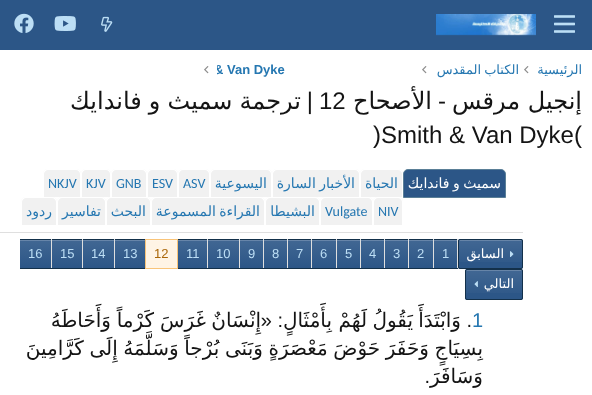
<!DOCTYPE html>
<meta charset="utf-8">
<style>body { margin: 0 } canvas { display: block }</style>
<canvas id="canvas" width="592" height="395"></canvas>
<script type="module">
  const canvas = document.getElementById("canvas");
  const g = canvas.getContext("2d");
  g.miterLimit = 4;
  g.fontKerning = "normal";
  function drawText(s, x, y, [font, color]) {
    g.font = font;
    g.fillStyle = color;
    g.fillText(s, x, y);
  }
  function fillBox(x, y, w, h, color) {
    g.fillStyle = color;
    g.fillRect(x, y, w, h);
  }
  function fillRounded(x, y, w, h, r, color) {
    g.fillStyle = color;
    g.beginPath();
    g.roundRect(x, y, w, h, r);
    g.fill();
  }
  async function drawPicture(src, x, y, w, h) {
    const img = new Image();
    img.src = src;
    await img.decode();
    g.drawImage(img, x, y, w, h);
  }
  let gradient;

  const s1 = ["13px DejaVu Sans", "#2577B1"];
  const s2 = ["bold 13px Liberation Sans", "#2577B1"];
  const s3 = ["24px DejaVu Sans", "#141414"];
  const s4 = ["24px Liberation Sans", "#141414"];
  const s5 = ["14px DejaVu Sans", "#FFFFFF"];
  const s6 = ["14px DejaVu Sans", "#2577B1"];
  const s7 = ["14px Carlito", "#2577B1"];
  const s8 = ["13px DejaVu Sans", "#FFFFFF"];
  const s9 = ["13px Liberation Sans", "#BCDEF5"];
  const s10 = ["13px Liberation Sans", "#AA6709"];
  const s11 = ["20px Liberation Sans", "#2577B1"];
  const s12 = ["20px Liberation Sans", "#141414"];
  const s13 = ["20px DejaVu Sans", "#141414"];

  fillBox(0, 0, 592, 395, "#FFFFFF");
  fillBox(0, 0, 592, 50, "#2C5687");
  await drawPicture("pic1.png", 554, 15, 21, 18);
  await drawPicture("pic2.png", 436, 14, 100, 22);
  await drawPicture("pic3.png", 101, 16, 12, 16);
  await drawPicture("pic4.png", 54, 16, 22, 15);
  await drawPicture("pic5.png", 14, 13, 20, 20);
  g.direction = "rtl";
  drawText("الرئيسية", 582, 74, s1);
  await drawPicture("pic6.png", 524, 66, 5, 8);
  g.wordSpacing = "-1px";
  drawText("الكتاب المقدس", 519, 74, s1);
  await drawPicture("pic6.png", 422, 66, 5, 8);
  g.save();
  g.beginPath();
  g.rect(217, 60, 200, 19);
  g.clip();
  g.wordSpacing = "0px";
  g.direction = "ltr";
  drawText("& Van Dyke", 214, 74, s2);
  g.restore();
  await drawPicture("pic6.png", 204, 66, 5, 8);
  g.wordSpacing = "0px";
  drawText("إنجيل مرقس", 582, 109, s3);
  drawText("-", 446, 109, s4);
  drawText("الأصحاح", 432, 109, s3);
  g.direction = "ltr";
  drawText("12", 319, 109, s4);
  g.direction = "rtl";
  drawText("|", 313, 109, s4);
  g.wordSpacing = "-0.5px";
  drawText("ترجمة سميث و فاندايك", 301, 109, s3);
  g.wordSpacing = "0px";
  g.direction = "ltr";
  drawText(")Smith & Van Dyke(", 373, 143, s4);
  g.fillStyle = "#2C5687";
  g.beginPath();
  g.roundRect(403.5, 169.5, 102, 28, [4.5, 4.5, 0, 0]);
  g.fill();
  g.strokeStyle = "#5A7F97";
  g.stroke();
  g.wordSpacing = "-1px";
  g.direction = "rtl";
  drawText("سميث و فاندايك", 501, 188, s5);
  g.fillStyle = "#F1F1F1";
  g.beginPath();
  g.roundRect(360, 169, 43, 28, [5, 5, 0, 0]);
  g.fill();
  g.fillStyle = "#FFFFFF";
  g.beginPath();
  g.moveTo(365, 169);
  g.lineTo(398, 169);
  g.bezierCurveTo(401, 169, 403, 171, 403, 174);
  g.lineTo(403, 197);
  g.lineTo(360, 197);
  g.lineTo(360, 174);
  g.bezierCurveTo(360, 171, 362, 169, 365, 169);
  g.closePath();
  g.moveTo(365, 170);
  g.lineTo(398, 170);
  g.bezierCurveTo(400, 170, 402, 172, 402, 174);
  g.lineTo(402, 197);
  g.lineTo(361, 197);
  g.lineTo(361, 174);
  g.bezierCurveTo(361, 172, 363, 170, 365, 170);
  g.closePath();
  g.fill("evenodd");
  g.wordSpacing = "0px";
  drawText("الحياة", 398, 188, s6);
  g.fillStyle = "#F1F1F1";
  g.beginPath();
  g.roundRect(272, 169, 88, 28, [5, 5, 0, 0]);
  g.fill();
  g.fillStyle = "#FFFFFF";
  g.beginPath();
  g.moveTo(277, 169);
  g.lineTo(355, 169);
  g.bezierCurveTo(358, 169, 360, 171, 360, 174);
  g.lineTo(360, 197);
  g.lineTo(272, 197);
  g.lineTo(272, 174);
  g.bezierCurveTo(272, 171, 274, 169, 277, 169);
  g.closePath();
  g.moveTo(277, 170);
  g.lineTo(355, 170);
  g.bezierCurveTo(357, 170, 359, 172, 359, 174);
  g.lineTo(359, 197);
  g.lineTo(273, 197);
  g.lineTo(273, 174);
  g.bezierCurveTo(273, 172, 275, 170, 277, 170);
  g.closePath();
  g.fill("evenodd");
  g.wordSpacing = "-1px";
  drawText("الأخبار السارة", 355, 188, s6);
  g.fillStyle = "#F1F1F1";
  g.beginPath();
  g.roundRect(210, 169, 62, 28, [5, 5, 0, 0]);
  g.fill();
  g.fillStyle = "#FFFFFF";
  g.beginPath();
  g.moveTo(215, 169);
  g.lineTo(267, 169);
  g.bezierCurveTo(270, 169, 272, 171, 272, 174);
  g.lineTo(272, 197);
  g.lineTo(210, 197);
  g.lineTo(210, 174);
  g.bezierCurveTo(210, 171, 212, 169, 215, 169);
  g.closePath();
  g.moveTo(215, 170);
  g.lineTo(267, 170);
  g.bezierCurveTo(269, 170, 271, 172, 271, 174);
  g.lineTo(271, 197);
  g.lineTo(211, 197);
  g.lineTo(211, 174);
  g.bezierCurveTo(211, 172, 213, 170, 215, 170);
  g.closePath();
  g.fill("evenodd");
  g.wordSpacing = "0px";
  drawText("اليسوعية", 267, 188, s6);
  g.fillStyle = "#F1F1F1";
  g.beginPath();
  g.roundRect(178, 169, 32, 28, [5, 5, 0, 0]);
  g.fill();
  g.fillStyle = "#FFFFFF";
  g.beginPath();
  g.moveTo(183, 169);
  g.lineTo(205, 169);
  g.bezierCurveTo(208, 169, 210, 171, 210, 174);
  g.lineTo(210, 197);
  g.lineTo(178, 197);
  g.lineTo(178, 174);
  g.bezierCurveTo(178, 171, 180, 169, 183, 169);
  g.closePath();
  g.moveTo(183, 170);
  g.lineTo(205, 170);
  g.bezierCurveTo(207, 170, 209, 172, 209, 174);
  g.lineTo(209, 197);
  g.lineTo(179, 197);
  g.lineTo(179, 174);
  g.bezierCurveTo(179, 172, 181, 170, 183, 170);
  g.closePath();
  g.fill("evenodd");
  g.direction = "ltr";
  drawText("ASV", 183, 188, s7);
  g.fillStyle = "#F1F1F1";
  g.beginPath();
  g.roundRect(147, 169, 31, 28, [5, 5, 0, 0]);
  g.fill();
  g.fillStyle = "#FFFFFF";
  g.beginPath();
  g.moveTo(152, 169);
  g.lineTo(173, 169);
  g.bezierCurveTo(176, 169, 178, 171, 178, 174);
  g.lineTo(178, 197);
  g.lineTo(147, 197);
  g.lineTo(147, 174);
  g.bezierCurveTo(147, 171, 149, 169, 152, 169);
  g.closePath();
  g.moveTo(152, 170);
  g.lineTo(173, 170);
  g.bezierCurveTo(175, 170, 177, 172, 177, 174);
  g.lineTo(177, 197);
  g.lineTo(148, 197);
  g.lineTo(148, 174);
  g.bezierCurveTo(148, 172, 150, 170, 152, 170);
  g.closePath();
  g.fill("evenodd");
  drawText("ESV", 152, 188, s7);
  g.fillStyle = "#F1F1F1";
  g.beginPath();
  g.roundRect(111, 169, 36, 28, [5, 5, 0, 0]);
  g.fill();
  g.fillStyle = "#FFFFFF";
  g.beginPath();
  g.moveTo(116, 169);
  g.lineTo(142, 169);
  g.bezierCurveTo(145, 169, 147, 171, 147, 174);
  g.lineTo(147, 197);
  g.lineTo(111, 197);
  g.lineTo(111, 174);
  g.bezierCurveTo(111, 171, 113, 169, 116, 169);
  g.closePath();
  g.moveTo(116, 170);
  g.lineTo(142, 170);
  g.bezierCurveTo(144, 170, 146, 172, 146, 174);
  g.lineTo(146, 197);
  g.lineTo(112, 197);
  g.lineTo(112, 174);
  g.bezierCurveTo(112, 172, 114, 170, 116, 170);
  g.closePath();
  g.fill("evenodd");
  drawText("GNB", 116, 188, s7);
  g.fillStyle = "#F1F1F1";
  g.beginPath();
  g.roundRect(81, 169, 30, 28, [5, 5, 0, 0]);
  g.fill();
  g.fillStyle = "#FFFFFF";
  g.beginPath();
  g.moveTo(86, 169);
  g.lineTo(106, 169);
  g.bezierCurveTo(109, 169, 111, 171, 111, 174);
  g.lineTo(111, 197);
  g.lineTo(81, 197);
  g.lineTo(81, 174);
  g.bezierCurveTo(81, 171, 83, 169, 86, 169);
  g.closePath();
  g.moveTo(86, 170);
  g.lineTo(106, 170);
  g.bezierCurveTo(108, 170, 110, 172, 110, 174);
  g.lineTo(110, 197);
  g.lineTo(82, 197);
  g.lineTo(82, 174);
  g.bezierCurveTo(82, 172, 84, 170, 86, 170);
  g.closePath();
  g.fill("evenodd");
  drawText("KJV", 86, 188, s7);
  g.fillStyle = "#F1F1F1";
  g.beginPath();
  g.roundRect(43, 169, 38, 28, [5, 5, 0, 0]);
  g.fill();
  g.fillStyle = "#FFFFFF";
  g.beginPath();
  g.moveTo(48, 169);
  g.lineTo(76, 169);
  g.bezierCurveTo(79, 169, 81, 171, 81, 174);
  g.lineTo(81, 197);
  g.lineTo(43, 197);
  g.lineTo(43, 174);
  g.bezierCurveTo(43, 171, 45, 169, 48, 169);
  g.closePath();
  g.moveTo(48, 170);
  g.lineTo(76, 170);
  g.bezierCurveTo(78, 170, 80, 172, 80, 174);
  g.lineTo(80, 197);
  g.lineTo(44, 197);
  g.lineTo(44, 174);
  g.bezierCurveTo(44, 172, 46, 170, 48, 170);
  g.closePath();
  g.fill("evenodd");
  drawText("NKJV", 48, 188, s7);
  g.fillStyle = "#F1F1F1";
  g.beginPath();
  g.roundRect(373, 197, 30, 28, [5, 5, 0, 0]);
  g.fill();
  g.fillStyle = "#FFFFFF";
  g.beginPath();
  g.moveTo(378, 197);
  g.lineTo(398, 197);
  g.bezierCurveTo(401, 197, 403, 199, 403, 202);
  g.lineTo(403, 225);
  g.lineTo(373, 225);
  g.lineTo(373, 202);
  g.bezierCurveTo(373, 199, 375, 197, 378, 197);
  g.closePath();
  g.moveTo(378, 198);
  g.lineTo(398, 198);
  g.bezierCurveTo(400, 198, 402, 200, 402, 202);
  g.lineTo(402, 225);
  g.lineTo(374, 225);
  g.lineTo(374, 202);
  g.bezierCurveTo(374, 200, 376, 198, 378, 198);
  g.closePath();
  g.fill("evenodd");
  drawText("NIV", 378, 216, s7);
  g.fillStyle = "#F1F1F1";
  g.beginPath();
  g.roundRect(320, 197, 53, 28, [5, 5, 0, 0]);
  g.fill();
  g.fillStyle = "#FFFFFF";
  g.beginPath();
  g.moveTo(325, 197);
  g.lineTo(368, 197);
  g.bezierCurveTo(371, 197, 373, 199, 373, 202);
  g.lineTo(373, 225);
  g.lineTo(320, 225);
  g.lineTo(320, 202);
  g.bezierCurveTo(320, 199, 322, 197, 325, 197);
  g.closePath();
  g.moveTo(325, 198);
  g.lineTo(368, 198);
  g.bezierCurveTo(370, 198, 372, 200, 372, 202);
  g.lineTo(372, 225);
  g.lineTo(321, 225);
  g.lineTo(321, 202);
  g.bezierCurveTo(321, 200, 323, 198, 325, 198);
  g.closePath();
  g.fill("evenodd");
  drawText("Vulgate", 325, 216, s7);
  g.fillStyle = "#F1F1F1";
  g.beginPath();
  g.roundRect(265, 197, 55, 28, [5, 5, 0, 0]);
  g.fill();
  g.fillStyle = "#FFFFFF";
  g.beginPath();
  g.moveTo(270, 197);
  g.lineTo(315, 197);
  g.bezierCurveTo(318, 197, 320, 199, 320, 202);
  g.lineTo(320, 225);
  g.lineTo(265, 225);
  g.lineTo(265, 202);
  g.bezierCurveTo(265, 199, 267, 197, 270, 197);
  g.closePath();
  g.moveTo(270, 198);
  g.lineTo(315, 198);
  g.bezierCurveTo(317, 198, 319, 200, 319, 202);
  g.lineTo(319, 225);
  g.lineTo(266, 225);
  g.lineTo(266, 202);
  g.bezierCurveTo(266, 200, 268, 198, 270, 198);
  g.closePath();
  g.fill("evenodd");
  g.direction = "rtl";
  drawText("البشيطا", 315, 216, s6);
  g.fillStyle = "#F1F1F1";
  g.beginPath();
  g.roundRect(151, 197, 114, 28, [5, 5, 0, 0]);
  g.fill();
  g.fillStyle = "#FFFFFF";
  g.beginPath();
  g.moveTo(156, 197);
  g.lineTo(260, 197);
  g.bezierCurveTo(263, 197, 265, 199, 265, 202);
  g.lineTo(265, 225);
  g.lineTo(151, 225);
  g.lineTo(151, 202);
  g.bezierCurveTo(151, 199, 153, 197, 156, 197);
  g.closePath();
  g.moveTo(156, 198);
  g.lineTo(260, 198);
  g.bezierCurveTo(262, 198, 264, 200, 264, 202);
  g.lineTo(264, 225);
  g.lineTo(152, 225);
  g.lineTo(152, 202);
  g.bezierCurveTo(152, 200, 154, 198, 156, 198);
  g.closePath();
  g.fill("evenodd");
  g.wordSpacing = "-1px";
  drawText("القراءة المسموعة", 260, 216, s6);
  g.fillStyle = "#F1F1F1";
  g.beginPath();
  g.roundRect(106, 197, 45, 28, [5, 5, 0, 0]);
  g.fill();
  g.fillStyle = "#FFFFFF";
  g.beginPath();
  g.moveTo(111, 197);
  g.lineTo(146, 197);
  g.bezierCurveTo(149, 197, 151, 199, 151, 202);
  g.lineTo(151, 225);
  g.lineTo(106, 225);
  g.lineTo(106, 202);
  g.bezierCurveTo(106, 199, 108, 197, 111, 197);
  g.closePath();
  g.moveTo(111, 198);
  g.lineTo(146, 198);
  g.bezierCurveTo(148, 198, 150, 200, 150, 202);
  g.lineTo(150, 225);
  g.lineTo(107, 225);
  g.lineTo(107, 202);
  g.bezierCurveTo(107, 200, 109, 198, 111, 198);
  g.closePath();
  g.fill("evenodd");
  g.wordSpacing = "0px";
  drawText("البحث", 146, 216, s6);
  g.fillStyle = "#F1F1F1";
  g.beginPath();
  g.roundRect(57, 197, 49, 28, [5, 5, 0, 0]);
  g.fill();
  g.fillStyle = "#FFFFFF";
  g.beginPath();
  g.moveTo(62, 197);
  g.lineTo(101, 197);
  g.bezierCurveTo(104, 197, 106, 199, 106, 202);
  g.lineTo(106, 225);
  g.lineTo(57, 225);
  g.lineTo(57, 202);
  g.bezierCurveTo(57, 199, 59, 197, 62, 197);
  g.closePath();
  g.moveTo(62, 198);
  g.lineTo(101, 198);
  g.bezierCurveTo(103, 198, 105, 200, 105, 202);
  g.lineTo(105, 225);
  g.lineTo(58, 225);
  g.lineTo(58, 202);
  g.bezierCurveTo(58, 200, 60, 198, 62, 198);
  g.closePath();
  g.fill("evenodd");
  drawText("تفاسير", 101, 216, s6);
  g.fillStyle = "#F1F1F1";
  g.beginPath();
  g.roundRect(21, 197, 36, 28, [5, 5, 0, 0]);
  g.fill();
  g.fillStyle = "#FFFFFF";
  g.beginPath();
  g.moveTo(26, 197);
  g.lineTo(52, 197);
  g.bezierCurveTo(55, 197, 57, 199, 57, 202);
  g.lineTo(57, 225);
  g.lineTo(21, 225);
  g.lineTo(21, 202);
  g.bezierCurveTo(21, 199, 23, 197, 26, 197);
  g.closePath();
  g.moveTo(26, 198);
  g.lineTo(52, 198);
  g.bezierCurveTo(54, 198, 56, 200, 56, 202);
  g.lineTo(56, 225);
  g.lineTo(22, 225);
  g.lineTo(22, 202);
  g.bezierCurveTo(22, 200, 24, 198, 26, 198);
  g.closePath();
  g.fill("evenodd");
  drawText("ردود", 52, 216, s6);
  fillBox(0, 232, 523, 1, "#DFDFDF");
  fillRounded(458, 239, 65, 30, 2, "#2C5687");
  gradient = g.createLinearGradient(491, 240, 491, 268);
  gradient.addColorStop(0, "rgba(255, 255, 255, 0.1)");
  gradient.addColorStop(1, "rgba(255, 255, 255, 0)");
  g.fillStyle = gradient;
  g.fillRect(458, 240, 65, 22);
  g.fillStyle = "rgba(255, 255, 255, 0.2)";
  g.beginPath();
  g.moveTo(460, 241);
  g.lineTo(521, 241);
  g.bezierCurveTo(522, 241, 522, 241, 522, 242);
  g.bezierCurveTo(522, 237, 515, 240, 511, 240);
  g.lineTo(470, 240);
  g.bezierCurveTo(466, 240, 459, 237, 459, 242);
  g.bezierCurveTo(459, 241, 459, 241, 460, 241);
  g.closePath();
  g.fill();
  g.beginPath();
  g.roundRect(458.5, 239.5, 64, 29, 1.5);
  g.strokeStyle = "#13304A";
  g.stroke();
  await drawPicture("pic7.png", 510, 251, 4, 6);
  drawText("السابق", 504, 258, s8);
  gradient = g.createLinearGradient(446, 240, 446, 268);
  gradient.addColorStop(0, "#416793");
  gradient.addColorStop(1, "#2C5687");
  g.fillStyle = gradient;
  g.fillRect(434, 241, 23, 27);
  fillBox(434, 240, 23, 1, "#6785A9");
  fillBox(178, 239, 280, 1, "#13304A");
  fillBox(457, 239, 1, 30, "#DFDFDF");
  fillBox(434, 268, 24, 1, "#13304A");
  g.direction = "ltr";
  drawText("1", 442, 258, s9);
  gradient = g.createLinearGradient(421, 240, 421, 268);
  gradient.addColorStop(0, "#416793");
  gradient.addColorStop(1, "#2C5687");
  g.fillStyle = gradient;
  g.fillRect(409, 241, 24, 27);
  fillBox(409, 240, 24, 1, "#6785A9");
  fillBox(433, 239, 1, 30, "#DFDFDF");
  fillBox(409, 268, 25, 1, "#13304A");
  drawText("2", 417, 258, s9);
  gradient = g.createLinearGradient(397, 240, 397, 268);
  gradient.addColorStop(0, "#416793");
  gradient.addColorStop(1, "#2C5687");
  g.fillStyle = gradient;
  g.fillRect(385, 241, 23, 27);
  fillBox(385, 240, 23, 1, "#6785A9");
  fillBox(408, 239, 1, 30, "#DFDFDF");
  fillBox(385, 268, 24, 1, "#13304A");
  drawText("3", 393, 258, s9);
  gradient = g.createLinearGradient(373, 240, 373, 268);
  gradient.addColorStop(0, "#416793");
  gradient.addColorStop(1, "#2C5687");
  g.fillStyle = gradient;
  g.fillRect(361, 241, 23, 27);
  fillBox(361, 240, 23, 1, "#6785A9");
  fillBox(384, 239, 1, 30, "#DFDFDF");
  fillBox(361, 268, 24, 1, "#13304A");
  drawText("4", 369, 258, s9);
  gradient = g.createLinearGradient(349, 240, 349, 268);
  gradient.addColorStop(0, "#416793");
  gradient.addColorStop(1, "#2C5687");
  g.fillStyle = gradient;
  g.fillRect(337, 241, 23, 27);
  fillBox(337, 240, 23, 1, "#6785A9");
  fillBox(360, 239, 1, 30, "#DFDFDF");
  fillBox(337, 268, 24, 1, "#13304A");
  drawText("5", 345, 258, s9);
  gradient = g.createLinearGradient(324, 240, 324, 268);
  gradient.addColorStop(0, "#416793");
  gradient.addColorStop(1, "#2C5687");
  g.fillStyle = gradient;
  g.fillRect(312, 241, 24, 27);
  fillBox(312, 240, 24, 1, "#6785A9");
  fillBox(336, 239, 1, 30, "#DFDFDF");
  fillBox(312, 268, 25, 1, "#13304A");
  drawText("6", 320, 258, s9);
  gradient = g.createLinearGradient(300, 240, 300, 268);
  gradient.addColorStop(0, "#416793");
  gradient.addColorStop(1, "#2C5687");
  g.fillStyle = gradient;
  g.fillRect(288, 241, 23, 27);
  fillBox(288, 240, 23, 1, "#6785A9");
  fillBox(311, 239, 1, 30, "#DFDFDF");
  fillBox(288, 268, 24, 1, "#13304A");
  drawText("7", 296, 258, s9);
  gradient = g.createLinearGradient(276, 240, 276, 268);
  gradient.addColorStop(0, "#416793");
  gradient.addColorStop(1, "#2C5687");
  g.fillStyle = gradient;
  g.fillRect(264, 241, 23, 27);
  fillBox(264, 240, 23, 1, "#6785A9");
  fillBox(287, 239, 1, 30, "#DFDFDF");
  fillBox(264, 268, 24, 1, "#13304A");
  drawText("8", 272, 258, s9);
  gradient = g.createLinearGradient(252, 240, 252, 268);
  gradient.addColorStop(0, "#416793");
  gradient.addColorStop(1, "#2C5687");
  g.fillStyle = gradient;
  g.fillRect(240, 241, 23, 27);
  fillBox(240, 240, 23, 1, "#6785A9");
  fillBox(263, 239, 1, 30, "#DFDFDF");
  fillBox(240, 268, 24, 1, "#13304A");
  drawText("9", 248, 258, s9);
  gradient = g.createLinearGradient(224, 240, 224, 268);
  gradient.addColorStop(0, "#416793");
  gradient.addColorStop(1, "#2C5687");
  g.fillStyle = gradient;
  g.fillRect(208, 241, 31, 27);
  fillBox(208, 240, 31, 1, "#6785A9");
  fillBox(239, 239, 1, 30, "#DFDFDF");
  fillBox(208, 268, 32, 1, "#13304A");
  drawText("10", 216, 258, s9);
  gradient = g.createLinearGradient(193, 240, 193, 268);
  gradient.addColorStop(0, "#416793");
  gradient.addColorStop(1, "#2C5687");
  g.fillStyle = gradient;
  g.fillRect(178, 241, 29, 27);
  fillBox(178, 240, 29, 1, "#6785A9");
  fillBox(207, 239, 1, 30, "#DFDFDF");
  fillBox(178, 268, 30, 1, "#13304A");
  drawText("11", 186, 258, s9);
  fillBox(146, 241, 31, 27, "#FFF4E5");
  fillBox(146, 240, 31, 1, "#FFF6EA");
  g.strokeStyle = "#F9C479";
  g.strokeRect(145.5, 239.5, 32, 29);
  drawText("12", 154, 258, s10);
  gradient = g.createLinearGradient(130, 240, 130, 268);
  gradient.addColorStop(0, "#416793");
  gradient.addColorStop(1, "#2C5687");
  g.fillStyle = gradient;
  g.fillRect(115, 241, 30, 27);
  fillBox(115, 240, 30, 1, "#6785A9");
  fillBox(20, 239, 125, 1, "#13304A");
  fillBox(115, 268, 30, 1, "#13304A");
  drawText("13", 123, 258, s9);
  gradient = g.createLinearGradient(99, 240, 99, 268);
  gradient.addColorStop(0, "#416793");
  gradient.addColorStop(1, "#2C5687");
  g.fillStyle = gradient;
  g.fillRect(83, 241, 31, 27);
  fillBox(83, 240, 31, 1, "#6785A9");
  fillBox(114, 239, 1, 30, "#DFDFDF");
  fillBox(83, 268, 32, 1, "#13304A");
  drawText("14", 91, 258, s9);
  gradient = g.createLinearGradient(67, 240, 67, 268);
  gradient.addColorStop(0, "#416793");
  gradient.addColorStop(1, "#2C5687");
  g.fillStyle = gradient;
  g.fillRect(52, 241, 30, 27);
  fillBox(52, 240, 30, 1, "#6785A9");
  fillBox(82, 239, 1, 30, "#DFDFDF");
  fillBox(52, 268, 31, 1, "#13304A");
  drawText("15", 60, 258, s9);
  gradient = g.createLinearGradient(36, 240, 36, 268);
  gradient.addColorStop(0, "#416793");
  gradient.addColorStop(1, "#2C5687");
  g.fillStyle = gradient;
  g.fillRect(20, 241, 31, 27);
  fillBox(20, 240, 31, 1, "#6785A9");
  fillBox(51, 239, 1, 30, "#DFDFDF");
  fillBox(20, 268, 32, 1, "#13304A");
  drawText("16", 28, 258, s9);
  fillRounded(465, 269, 58, 31, 2, "#2C5687");
  gradient = g.createLinearGradient(494, 270, 494, 299);
  gradient.addColorStop(0, "rgba(255, 255, 255, 0.1)");
  gradient.addColorStop(1, "rgba(255, 255, 255, 0)");
  g.fillStyle = gradient;
  g.fillRect(465, 270, 58, 23);
  g.fillStyle = "rgba(255, 255, 255, 0.2)";
  g.beginPath();
  g.moveTo(467, 271);
  g.lineTo(521, 271);
  g.bezierCurveTo(522, 271, 522, 271, 522, 272);
  g.bezierCurveTo(522, 267, 516, 270, 512, 270);
  g.lineTo(476, 270);
  g.bezierCurveTo(472, 270, 466, 267, 466, 272);
  g.bezierCurveTo(466, 271, 466, 271, 467, 271);
  g.closePath();
  g.fill();
  g.beginPath();
  g.roundRect(465.5, 269.5, 57, 30, 1.5);
  g.strokeStyle = "#13304A";
  g.stroke();
  g.direction = "rtl";
  drawText("التالي", 514, 288, s8);
  await drawPicture("pic8.png", 474, 281, 4, 6);
  g.direction = "ltr";
  drawText("1", 472, 327, s11);
  g.direction = "rtl";
  drawText(".", 472, 327, s12);
  drawText("وَابْتَدَأَ", 461, 327, s13);
  drawText("يَقُولُ", 413, 327, s13);
  drawText("لَهُمْ", 367, 327, s13);
  drawText("بِأَمْثَالٍ", 332, 327, s13);
  drawText(": «", 283, 327, s12);
  drawText("إِنْسَانٌ", 261, 327, s13);
  drawText("غَرَسَ", 206, 327, s13);
  drawText("كَرْماً", 154, 327, s13);
  drawText("وَأَحَاطَهُ", 111, 327, s13);
  g.wordSpacing = "-0.75px";
  drawText("بِسِيَاجٍ وَحَفَرَ حَوْضَ مَعْصَرَةٍ وَبَنَى بُرْجاً وَسَلَّمَهُ إِلَى كَرَّامِينَ", 483, 355, s13);
  g.wordSpacing = "0px";
  drawText("وَسَافَرَ", 483, 383, s13);
  drawText(".", 430, 383, s12);
</script>
